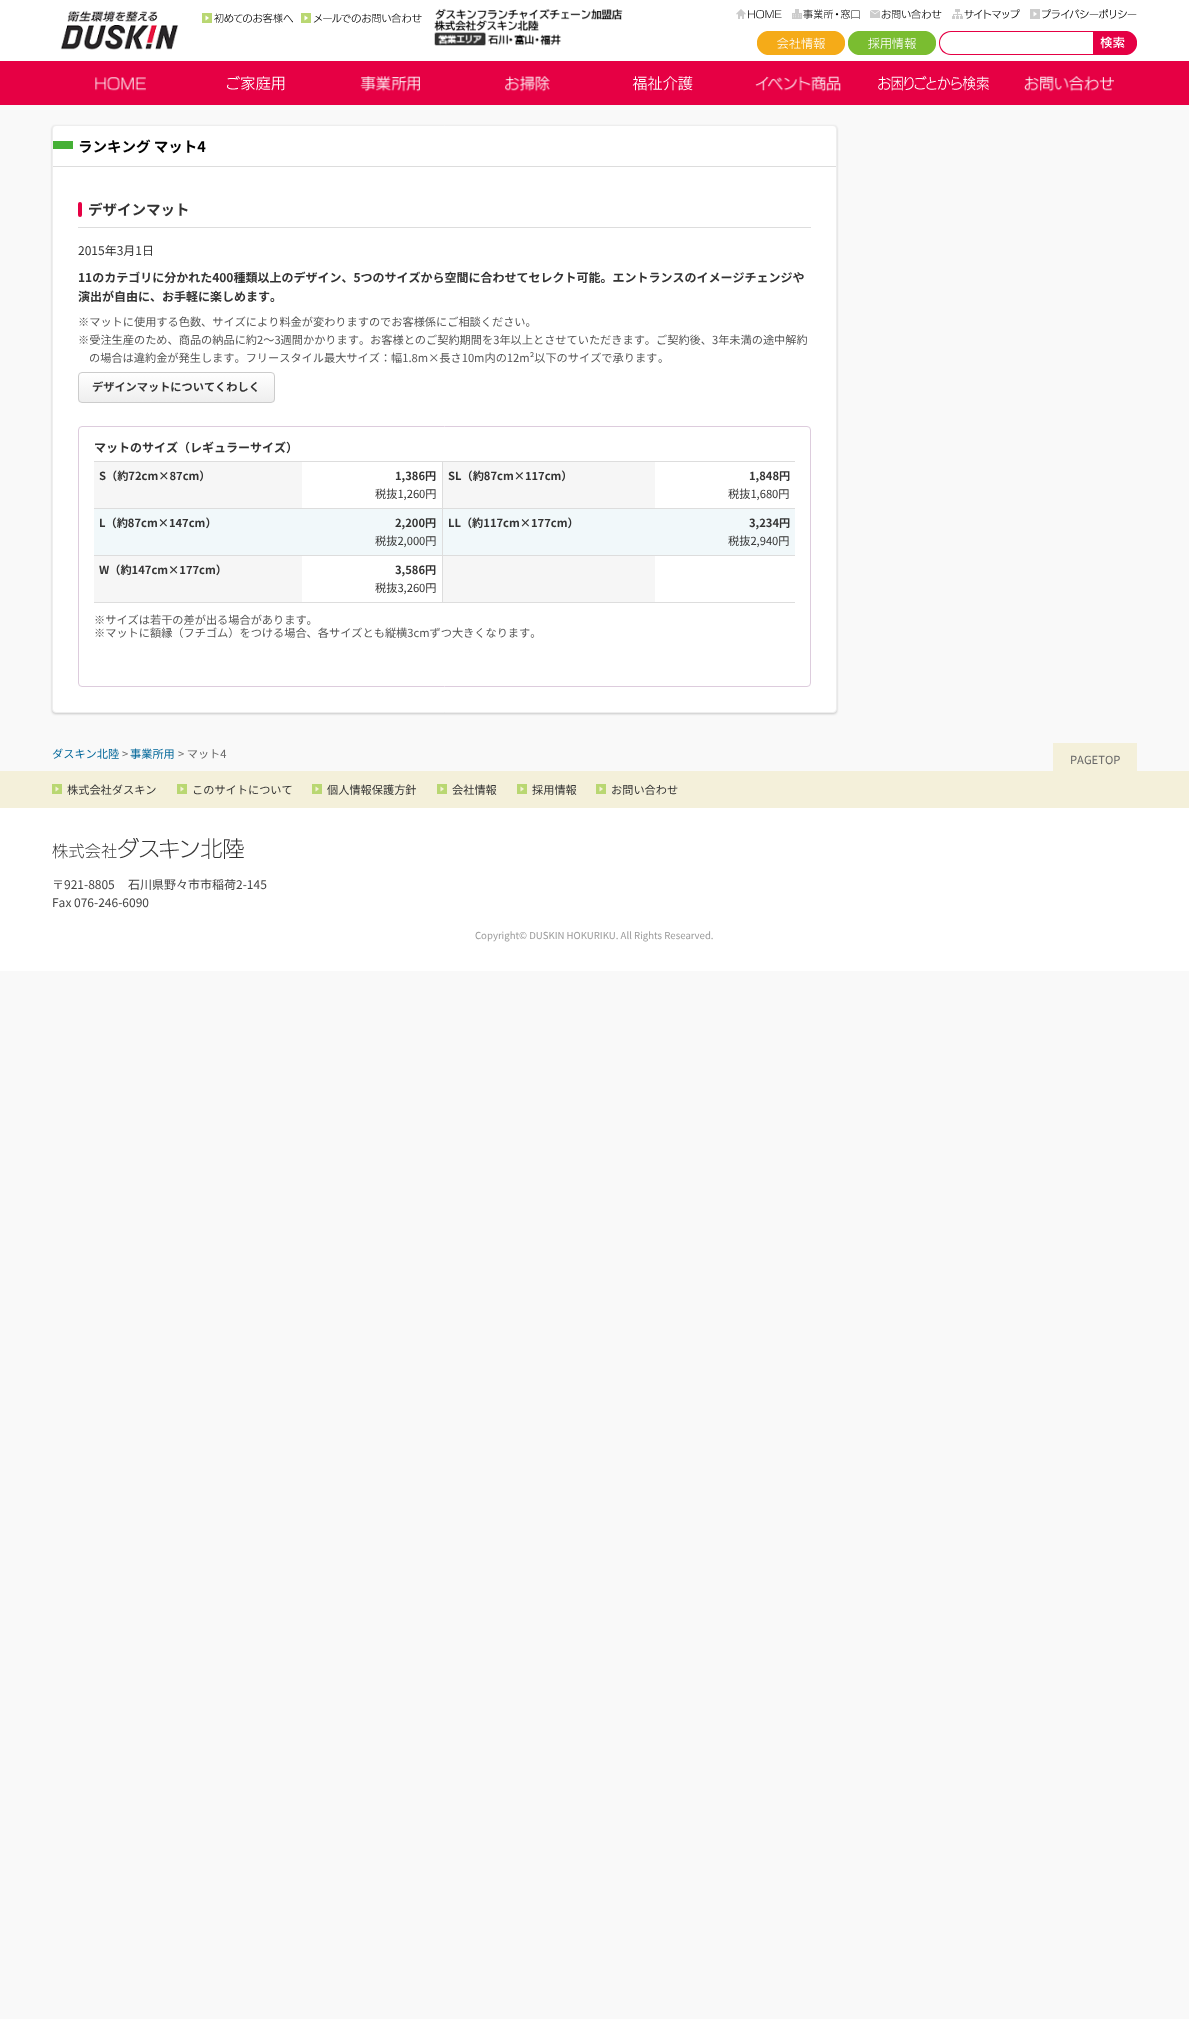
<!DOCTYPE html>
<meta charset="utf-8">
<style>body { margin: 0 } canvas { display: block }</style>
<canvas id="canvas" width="1189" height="2019"></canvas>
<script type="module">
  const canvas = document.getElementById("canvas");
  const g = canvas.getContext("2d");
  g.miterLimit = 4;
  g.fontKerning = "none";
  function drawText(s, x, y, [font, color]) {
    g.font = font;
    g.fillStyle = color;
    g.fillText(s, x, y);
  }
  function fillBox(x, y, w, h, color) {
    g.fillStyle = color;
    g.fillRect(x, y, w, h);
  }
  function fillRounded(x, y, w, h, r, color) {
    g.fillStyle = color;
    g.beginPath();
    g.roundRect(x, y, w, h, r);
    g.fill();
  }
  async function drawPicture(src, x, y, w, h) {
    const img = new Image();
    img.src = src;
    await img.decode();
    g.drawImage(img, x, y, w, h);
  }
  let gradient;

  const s1 = ["bold 14.5px Noto Sans JP", "#000000"];
  const s2 = ["bold 14.5px Noto Sans JP", "#333333"];
  const s3 = ["12px Noto Sans JP", "#333333"];
  const s4 = ["bold 12px Noto Sans JP", "#333333"];
  const s5 = ["11.2px Noto Sans JP", "#555555"];
  const s6 = ["bold 11.2px Noto Sans JP", "#333333"];
  const s7 = ["11.2px Noto Sans JP", "#333333"];
  const s8 = ["11.2px Noto Sans JP", "#006699"];
  const s9 = ["11.2px Noto Sans JP", "#666666"];
  const s10 = ["12px Noto Sans JP", "#444444"];
  const s11 = ["9.6px Noto Sans JP", "#999999"];

  fillBox(0, 0, 1189, 2019, "#F9F9F9");
  fillBox(0, 0, 1189, 61, "#FFFFFF");
  await drawPicture("pic1.png", 60, 10, 119, 40);
  await drawPicture("pic2.png", 202, 13, 91, 10);
  await drawPicture("pic3.png", 301, 13, 121, 10);
  await drawPicture("pic4.png", 434, 8, 189, 38);
  await drawPicture("pic5.png", 736, 9, 46, 10);
  await drawPicture("pic6.png", 792, 9, 68, 10);
  await drawPicture("pic7.png", 870, 9, 72, 10);
  await drawPicture("pic8.png", 952, 9, 68, 10);
  await drawPicture("pic9.png", 1030, 9, 107, 10);
  await drawPicture("pic10.png", 757, 31, 88, 24);
  await drawPicture("pic11.png", 848, 31, 88, 24);
  g.fillStyle = "#E50044";
  g.beginPath();
  g.moveTo(951, 31);
  g.lineTo(1093, 31);
  g.lineTo(1093, 55);
  g.lineTo(951, 55);
  g.bezierCurveTo(944, 55, 939, 50, 939, 43);
  g.bezierCurveTo(939, 36, 944, 31, 951, 31);
  g.closePath();
  g.moveTo(951, 32);
  g.lineTo(1093, 32);
  g.lineTo(1093, 54);
  g.lineTo(951, 54);
  g.bezierCurveTo(945, 54, 940, 49, 940, 43);
  g.bezierCurveTo(940, 37, 945, 32, 951, 32);
  g.closePath();
  g.fill("evenodd");
  await drawPicture("pic12.png", 1093, 31, 44, 24);
  fillBox(0, 61, 1189, 44, "#E60044");
  await drawPicture("pic13.png", 95, 77, 51, 14);
  await drawPicture("pic14.png", 227, 75, 58, 16);
  await drawPicture("pic15.png", 360, 76, 60, 16);
  await drawPicture("pic16.png", 505, 76, 45, 16);
  await drawPicture("pic17.png", 632, 76, 61, 15);
  await drawPicture("pic18.png", 755, 76, 86, 16);
  await drawPicture("pic19.png", 878, 75, 111, 16);
  await drawPicture("pic20.png", 1024, 76, 90, 16);
  g.fillStyle = "rgba(0, 0, 0, 0.2)";
  g.filter = "blur(1px)";
  g.beginPath();
  g.roundRect(52, 126, 785, 588, 4);
  g.fill();
  g.filter = "none";
  g.fillStyle = "#FFFFFF";
  g.beginPath();
  g.roundRect(52.5, 125.5, 784, 587, 3.5);
  g.fill();
  g.strokeStyle = "#EEEEEE";
  g.stroke();
  fillBox(53, 166, 783, 1, "#DDDDDD");
  fillBox(53, 141, 20, 8, "#45B035");
  drawText("ランキング マット4", 78, 152, s1);
  fillBox(78, 227, 733, 1, "#DDDDDD");
  fillRounded(78, 202, 4, 15, 2, "#E60044");
  drawText("デザインマット", 88, 215, s2);
  drawText("2015年3月1日", 78, 255, s3);
  drawText("11のカテゴリに分かれた400種類以上のデザイン、5つのサイズから空間に合わせてセレクト可能。エントランスのイメージチェンジや", 78, 282, s4);
  drawText("演出が自由に、お手軽に楽しめます。", 78, 301, s4);
  drawText("※マットに使用する色数、サイズにより料金が変わりますのでお客様係にご相談ください。", 78, 326, s5);
  drawText("※受注生産のため、商品の納品に約2〜3週間かかります。お客様とのご契約期間を3年以上とさせていただきます。ご契約後、3年未満の途中解約", 78, 344, s5);
  drawText("の場合は違約金が発生します。フリースタイル最大サイズ：幅1.8m×長さ10m内の12m²以下のサイズで承ります", 89, 362, s5);
  drawText("。", 658, 362, s5);
  g.save();
  g.beginPath();
  g.roundRect(78, 372, 197, 31, 4);
  g.clip();
  gradient = g.createLinearGradient(177, 373, 177, 402);
  gradient.addColorStop(0, "#FFFFFF");
  gradient.addColorStop(1, "#EEEEEE");
  g.fillStyle = gradient;
  g.fillRect(78, 373, 197, 29);
  g.restore();
  g.beginPath();
  g.roundRect(78.5, 372.5, 196, 30, 3.5);
  g.strokeStyle = "#CCCCCC";
  g.stroke();
  drawText("デザインマットについてくわしく", 92, 391, s6);
  g.beginPath();
  g.roundRect(78.5, 426.5, 732, 260, 3.5);
  g.strokeStyle = "#DDCCDD";
  g.stroke();
  drawText("マットのサイズ（レギュラーサイズ）", 94, 452, s4);
  fillBox(94, 461, 701, 1, "#DDDDDD");
  fillBox(94, 602, 701, 1, "#DDDDDD");
  fillBox(94, 462, 208, 46, "#F6F6F6");
  drawText("S（約72cm×87cm）", 99, 480, s6);
  drawText("1,386円", 395, 480, s6);
  drawText("税抜1,260円", 375, 498, s7);
  fillBox(443, 462, 212, 46, "#F6F6F6");
  fillBox(442, 508, 353, 1, "#DDDDDD");
  fillBox(442, 555, 353, 1, "#DDDDDD");
  fillBox(442, 555, 1, 48, "#DDDDDD");
  fillBox(94, 555, 349, 1, "#DDDDDD");
  fillBox(442, 508, 1, 48, "#DDDDDD");
  fillBox(94, 508, 349, 1, "#DDDDDD");
  fillBox(442, 461, 1, 48, "#DDDDDD");
  drawText("SL（約87cm×117cm）", 448, 480, s6);
  drawText("1,848円", 749, 480, s6);
  drawText("税抜1,680円", 728, 498, s7);
  fillBox(94, 509, 348, 46, "#F1F8FA");
  drawText("L（約87cm×147cm）", 99, 527, s6);
  drawText("2,200円", 395, 527, s6);
  drawText("税抜2,000円", 375, 545, s7);
  fillBox(443, 509, 352, 46, "#F1F8FA");
  drawText("LL（約117cm×177cm）", 448, 527, s6);
  drawText("3,234円", 749, 527, s6);
  drawText("税抜2,940円", 728, 545, s7);
  fillBox(443, 556, 212, 46, "#F6F6F6");
  fillBox(94, 556, 208, 46, "#F6F6F6");
  drawText("W（約147cm×177cm）", 99, 574, s6);
  drawText("3,586円", 395, 574, s6);
  drawText("税抜3,260円", 375, 592, s7);
  drawText("※サイズは若干の差が出る場合があります。", 94, 624, s5);
  drawText("※マットに額縁（フチゴム）をつける場合、各サイズとも縦横3cmずつ大きくなります。", 94, 637, s5);
  drawText("ダスキン北陸", 52, 758, s8);
  drawText(">", 122, 758, s9);
  drawText("事業所用", 130, 758, s8);
  drawText("> マット4", 178, 758, s9);
  fillBox(1053, 743, 84, 28, "#F4F0DA");
  drawText("PAGETOP", 1070, 764, s9);
  fillBox(0, 771, 1189, 37, "#F4F0DA");
  await drawPicture("pic21.png", 52, 784, 10, 10);
  drawText("株式会社ダスキン", 67, 794, s7);
  await drawPicture("pic21.png", 177, 784, 10, 10);
  drawText("このサイトについて", 192, 794, s7);
  await drawPicture("pic21.png", 312, 784, 10, 10);
  drawText("個人情報保護方針", 327, 794, s7);
  await drawPicture("pic21.png", 437, 784, 10, 10);
  drawText("会社情報", 452, 794, s7);
  await drawPicture("pic21.png", 517, 784, 10, 10);
  drawText("採用情報", 532, 794, s7);
  await drawPicture("pic21.png", 596, 784, 10, 10);
  drawText("お問い合わせ", 611, 794, s7);
  fillBox(0, 808, 1189, 163, "#FFFFFF");
  await drawPicture("pic22.png", 52, 838, 192, 21);
  drawText("〒921-8805", 52, 889, s10);
  drawText("石川県野々市市稲荷2-145", 128, 889, s10);
  drawText("Fax 076-246-6090", 52, 907, s10);
  drawText("Copyright© DUSKIN HOKURIKU. All Rights Researved.", 475, 939, s11);
</script>
